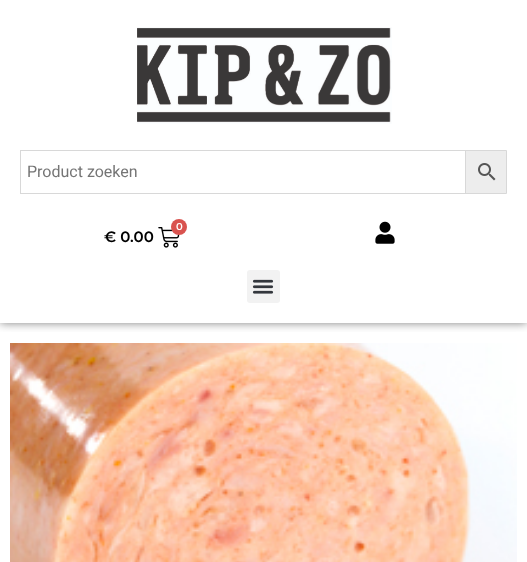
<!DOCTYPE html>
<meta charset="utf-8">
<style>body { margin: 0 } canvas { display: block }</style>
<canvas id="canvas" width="527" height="562"></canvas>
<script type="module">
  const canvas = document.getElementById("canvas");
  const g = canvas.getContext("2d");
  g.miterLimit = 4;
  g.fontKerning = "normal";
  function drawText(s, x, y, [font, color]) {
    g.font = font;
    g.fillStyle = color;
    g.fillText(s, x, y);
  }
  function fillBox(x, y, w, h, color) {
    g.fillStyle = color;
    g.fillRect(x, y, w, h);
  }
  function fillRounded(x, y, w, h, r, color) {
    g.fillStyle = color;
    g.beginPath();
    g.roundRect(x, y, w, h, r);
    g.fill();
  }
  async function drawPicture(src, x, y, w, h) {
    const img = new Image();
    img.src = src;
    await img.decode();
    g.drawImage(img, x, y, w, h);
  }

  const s1 = ["16px Roboto", "#757575"];
  const s2 = ["600 10px Montserrat", "#FFFFFF"];
  const s3 = ["600 15px Montserrat", "#000000"];

  fillBox(0, 0, 527, 562, "#FFFFFF");
  g.save();
  g.beginPath();
  g.rect(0, 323, 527, 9);
  g.clip();
  g.fillStyle = "rgba(0, 0, 0, 0.5)";
  g.filter = "blur(5px)";
  g.beginPath();
  g.rect(0, 0, 527, 323);
  g.fill();
  g.filter = "none";
  g.restore();
  await drawPicture("pic1.png", 137, 27, 255, 97);
  g.fillStyle = "#EDEDED";
  g.beginPath();
  g.rect(465.5, 150.5, 41, 43);
  g.fill();
  g.strokeStyle = "#D8D8D8";
  g.stroke();
  g.strokeRect(20.5, 150.5, 445, 43);
  drawText("Product zoeken", 27, 177, s1);
  await drawPicture("pic2.png", 478, 163, 18, 18);
  await drawPicture("pic3.png", 158, 227, 22, 21);
  g.fillStyle = "#D9534F";
  g.beginPath();
  g.arc(179, 227, 8, 0, Math.PI * 2);
  g.fill();
  drawText("0", 176, 230, s2);
  drawText("€ 0.00", 104, 242, s3);
  await drawPicture("pic4.png", 375, 221, 20, 23);
  fillRounded(247, 270, 33, 33, 3, "#F2F2F2");
  await drawPicture("pic5.png", 252, 279, 22, 15);
  await drawPicture("pic6.png", 10, 343, 507, 219);
</script>
